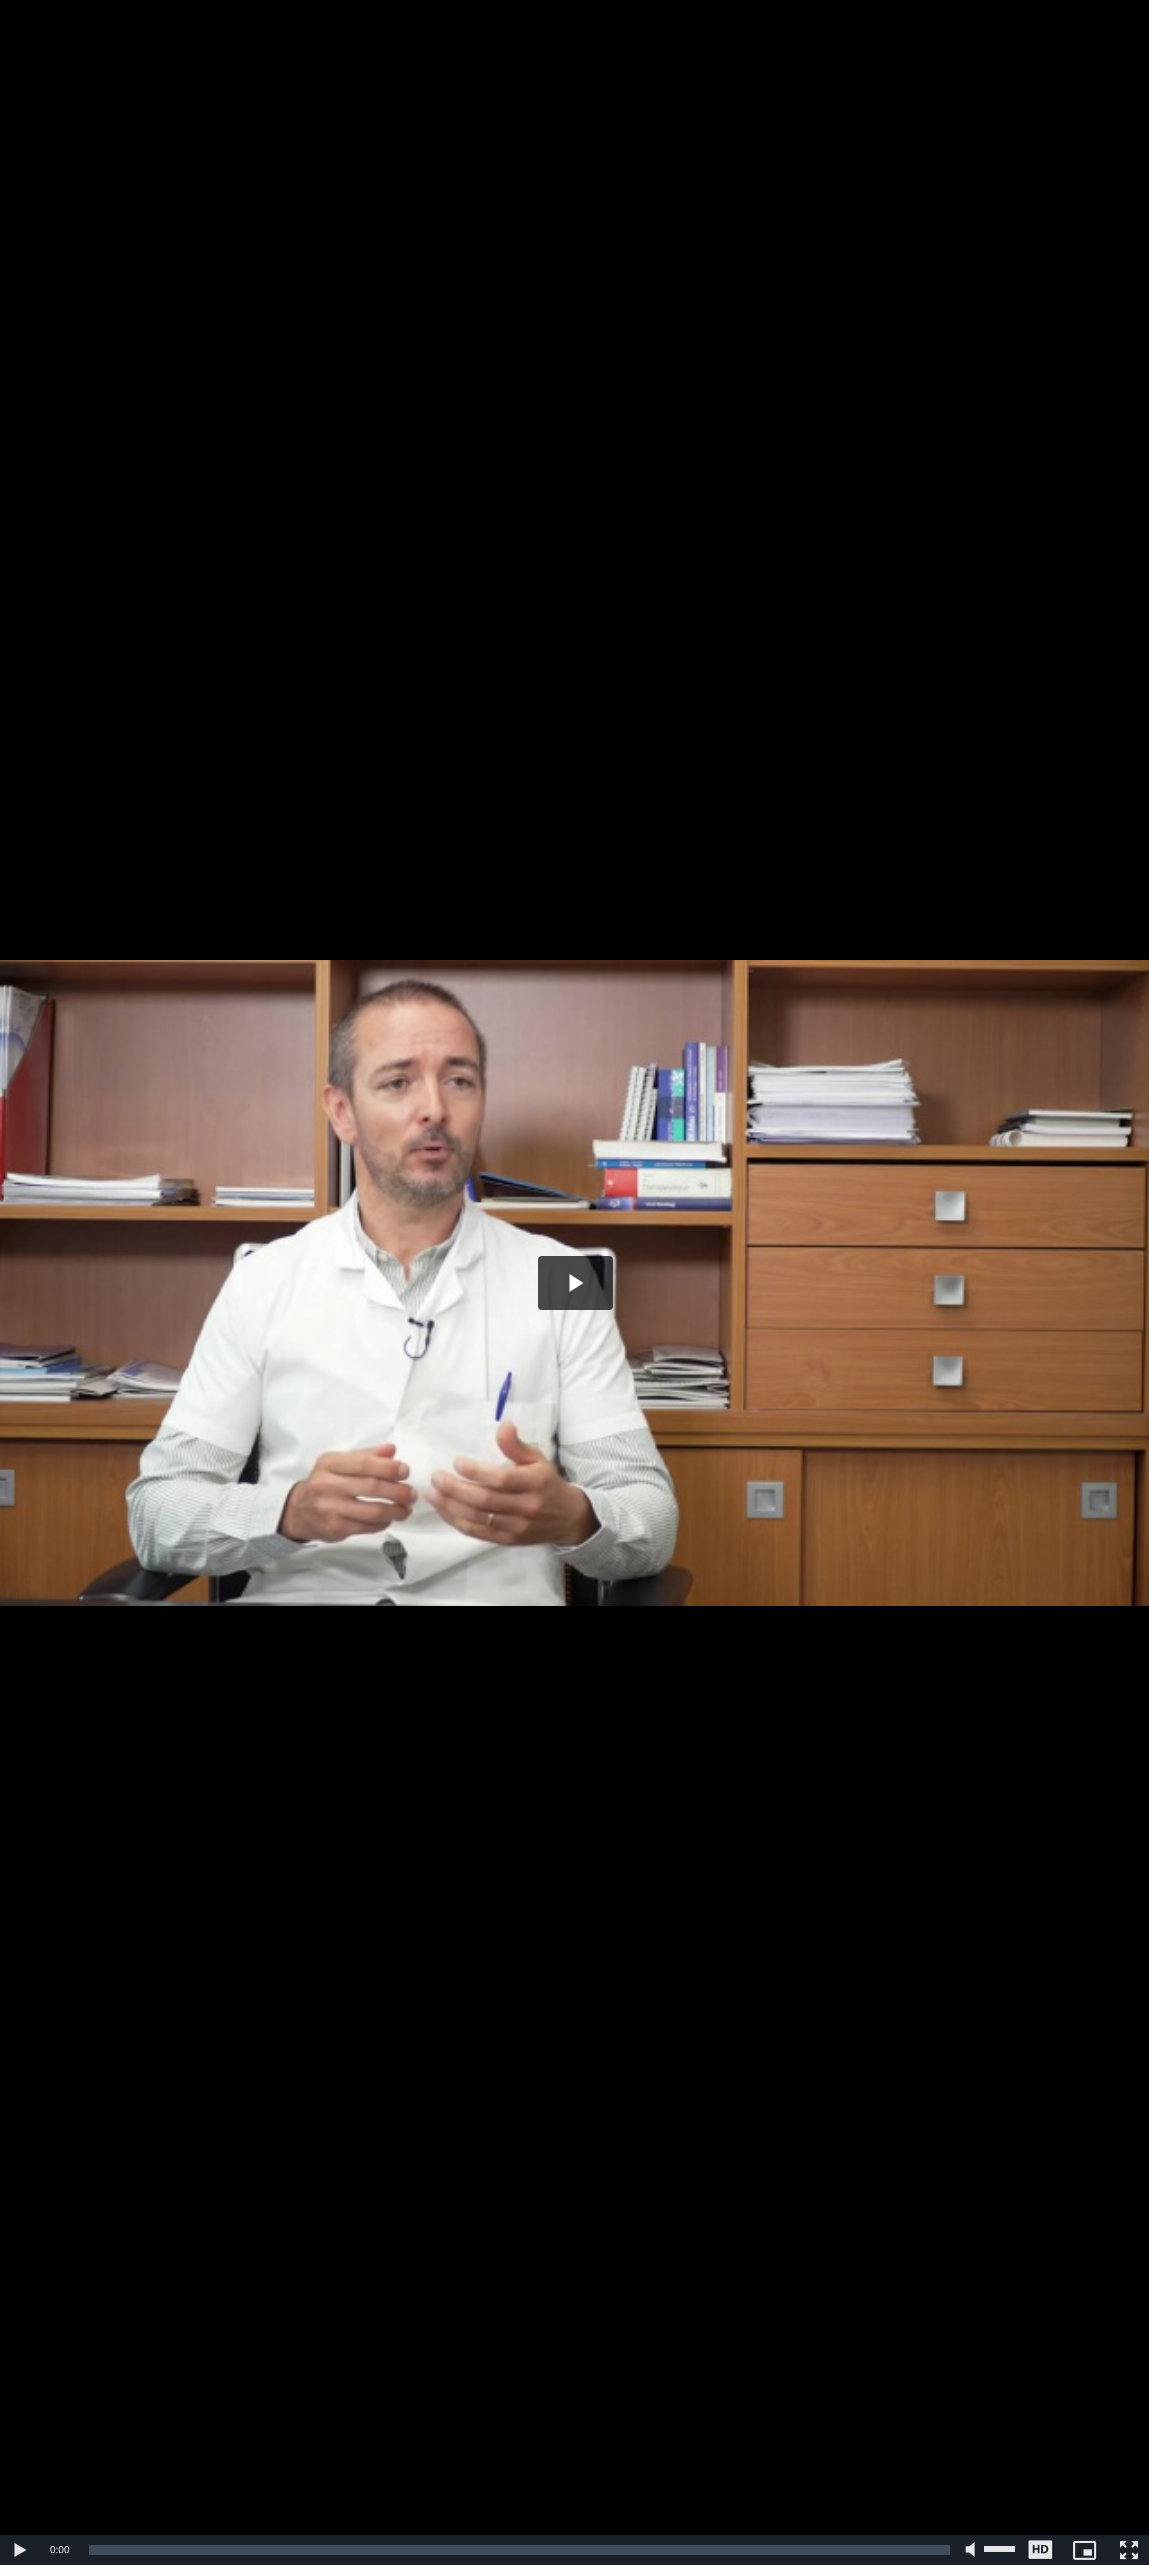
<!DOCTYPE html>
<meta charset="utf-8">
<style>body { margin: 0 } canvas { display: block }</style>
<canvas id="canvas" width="1149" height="2565"></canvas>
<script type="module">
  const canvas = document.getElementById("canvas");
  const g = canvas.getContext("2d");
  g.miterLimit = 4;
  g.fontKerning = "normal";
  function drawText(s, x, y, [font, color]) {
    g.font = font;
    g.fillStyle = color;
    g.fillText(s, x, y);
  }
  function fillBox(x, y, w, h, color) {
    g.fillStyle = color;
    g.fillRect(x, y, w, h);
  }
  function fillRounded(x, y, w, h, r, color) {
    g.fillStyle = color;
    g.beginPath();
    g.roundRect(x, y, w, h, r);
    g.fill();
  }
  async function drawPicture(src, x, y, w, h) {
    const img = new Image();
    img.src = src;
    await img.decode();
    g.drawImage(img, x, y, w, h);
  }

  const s1 = ["10px Liberation Sans", "#E6E6E6"];

  fillBox(0, 0, 1149, 2565, "#000000");
  await drawPicture("pic1.png", 0, 960, 1149, 646);
  fillRounded(538, 1256, 75, 54, 4, "rgba(0, 0, 0, 0.7)");
  g.fillStyle = "#FFFFFF";
  g.beginPath();
  g.moveTo(569.5, 1274);
  g.lineTo(569.5, 1292);
  g.lineTo(583.5, 1283);
  g.closePath();
  g.fill();
  fillBox(0, 2535, 1149, 30, "#1B2028");
  g.fillStyle = "#E6E6E6";
  g.beginPath();
  g.moveTo(14.5, 2550);
  g.lineTo(14.5, 2543);
  g.lineTo(26.5, 2550);
  g.lineTo(14.5, 2557);
  g.closePath();
  g.fill();
  drawText("0:00", 50, 2553, s1);
  fillBox(89, 2545, 861, 10, "#424C5C");
  await drawPicture("pic2.png", 965, 2542, 10, 15);
  fillBox(984, 2546, 31, 6, "#E6E6E6");
  await drawPicture("pic3.png", 1028, 2540, 25, 19);
  await drawPicture("pic4.png", 1073, 2540, 24, 20);
  await drawPicture("pic5.png", 1120, 2541, 18, 19);
</script>
